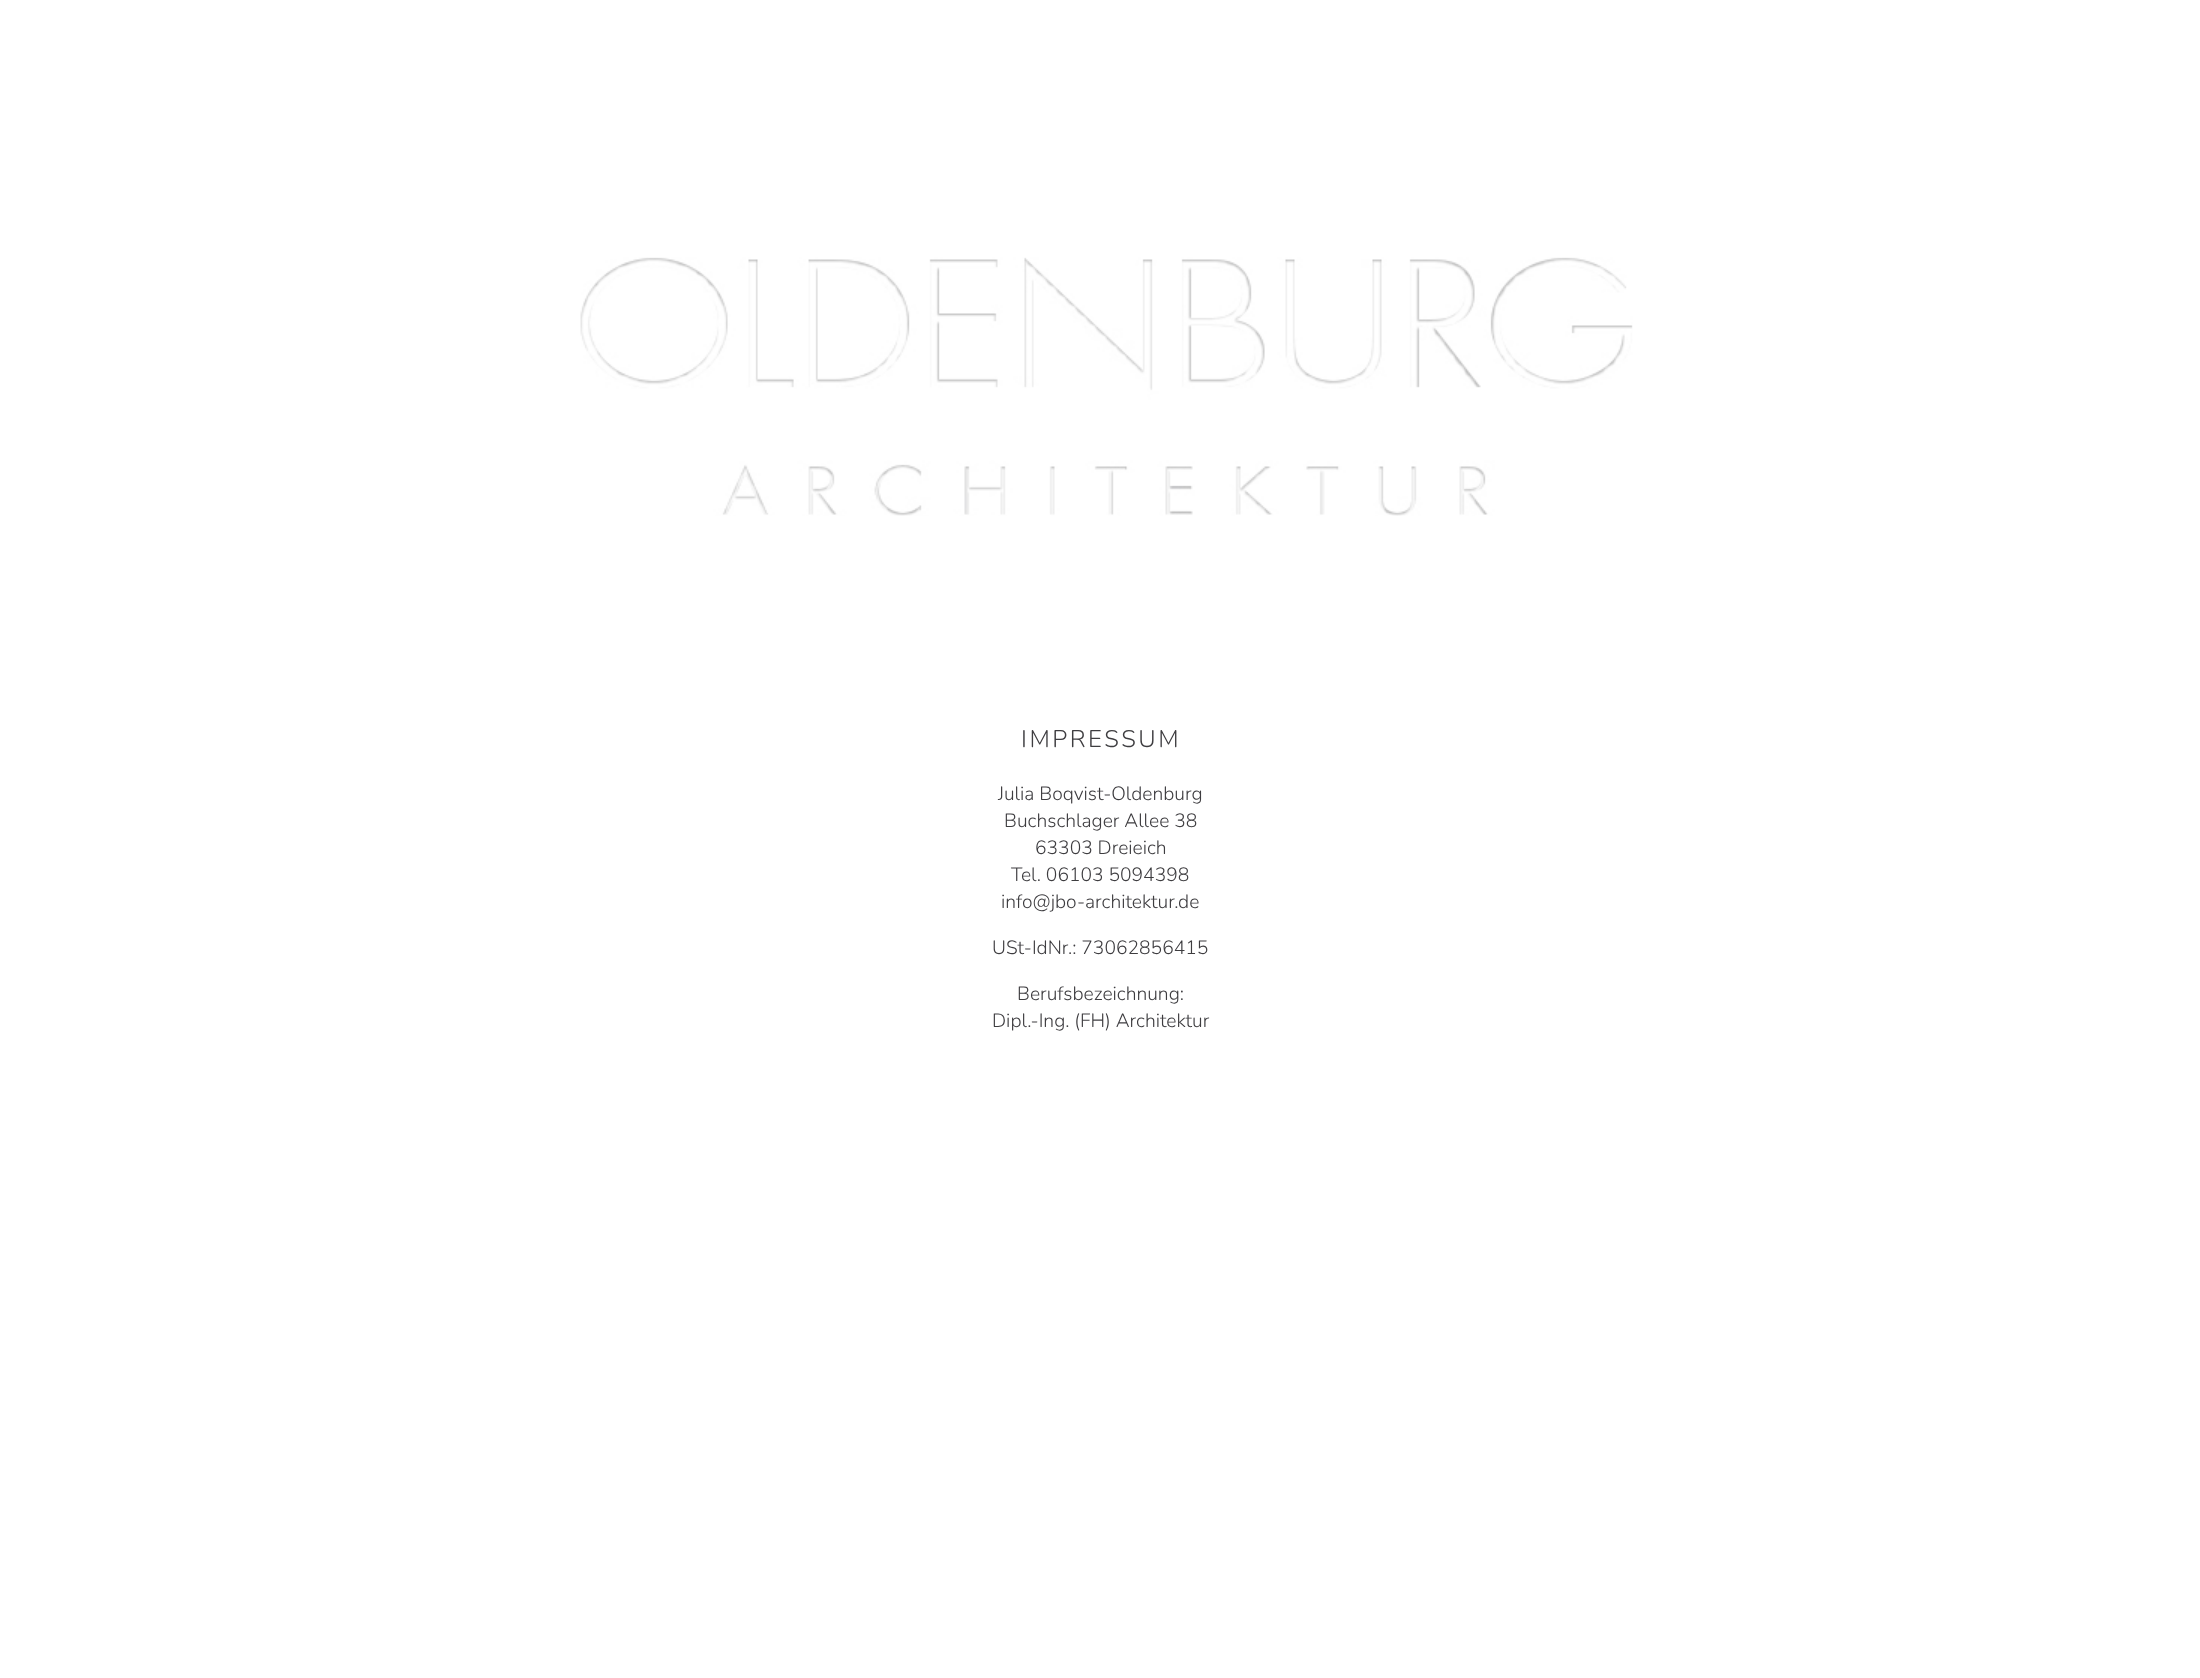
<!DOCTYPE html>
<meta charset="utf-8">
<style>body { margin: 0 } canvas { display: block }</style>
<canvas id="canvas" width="2200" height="1678"></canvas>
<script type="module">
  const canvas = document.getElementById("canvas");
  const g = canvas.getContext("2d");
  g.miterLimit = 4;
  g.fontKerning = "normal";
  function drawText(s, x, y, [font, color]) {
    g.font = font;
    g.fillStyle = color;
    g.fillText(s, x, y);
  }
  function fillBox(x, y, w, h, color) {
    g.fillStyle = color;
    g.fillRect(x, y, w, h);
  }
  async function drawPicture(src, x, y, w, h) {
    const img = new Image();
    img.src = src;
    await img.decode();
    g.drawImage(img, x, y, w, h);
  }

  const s1 = ["200 24px Nunito", "#3E3D40"];
  const s2 = ["200 19.25px Nunito", "#3E3D40"];

  fillBox(0, 0, 2200, 1678, "#FFFFFF");
  await drawPicture("pic1.png", 580, 257, 1053, 259);
  g.letterSpacing = "2.5px";
  drawText("IMPRESSUM", 1021, 747, s1);
  g.letterSpacing = "0px";
  drawText("Julia Boqvist-Oldenburg", 998, 800, s2);
  drawText("Buchschlager Allee 38", 1004, 827, s2);
  drawText("63303 Dreieich", 1035, 854, s2);
  drawText("Tel. 06103 5094398", 1011, 881, s2);
  drawText("info@jbo-architektur.de", 1001, 908, s2);
  drawText("USt-IdNr.: 73062856415", 992, 954, s2);
  drawText("Berufsbezeichnung:", 1017, 1000, s2);
  drawText("Dipl.-Ing. (FH) Architektur", 992, 1027, s2);
</script>
